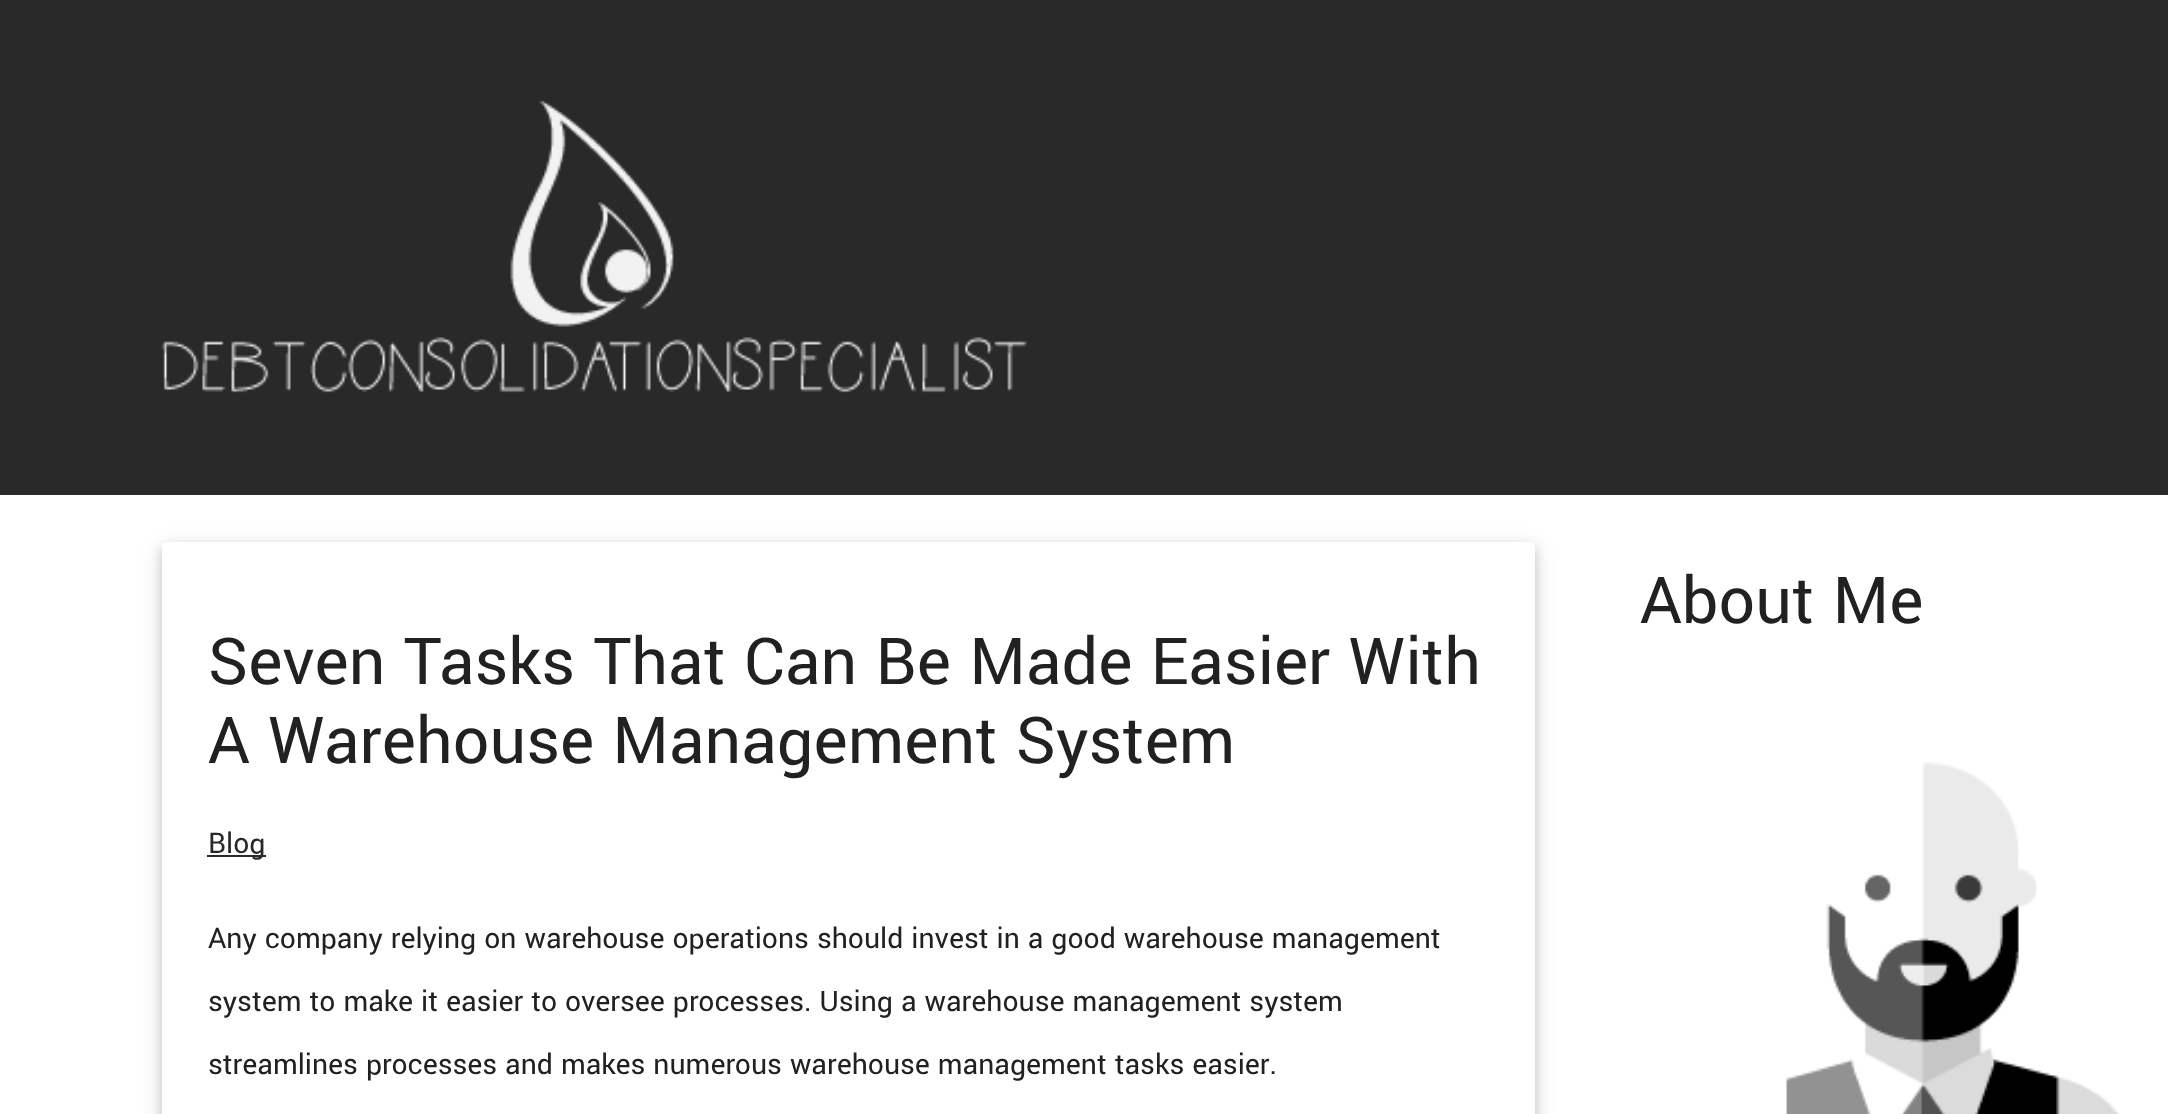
<!DOCTYPE html>
<meta charset="utf-8">
<style>body { margin: 0 } canvas { display: block }</style>
<canvas id="canvas" width="2168" height="1114"></canvas>
<script type="module">
  const canvas = document.getElementById("canvas");
  const g = canvas.getContext("2d");
  g.miterLimit = 4;
  g.fontKerning = "normal";
  function drawText(s, x, y, [font, color]) {
    g.font = font;
    g.fillStyle = color;
    g.fillText(s, x, y);
  }
  function fillBox(x, y, w, h, color) {
    g.fillStyle = color;
    g.fillRect(x, y, w, h);
  }
  function fillRounded(x, y, w, h, r, color) {
    g.fillStyle = color;
    g.beginPath();
    g.roundRect(x, y, w, h, r);
    g.fill();
  }
  async function drawPicture(src, x, y, w, h) {
    const img = new Image();
    img.src = src;
    await img.decode();
    g.drawImage(img, x, y, w, h);
  }

  const s1 = ["71.8px Yantramanav", "#212121"];
  const s2 = ["31.5px Yantramanav", "#292929"];
  const s3 = ["31.5px Yantramanav", "#212121"];

  fillBox(0, 0, 2168, 1114, "#FFFFFF");
  fillBox(0, 0, 2168, 495, "#292929");
  await drawPicture("pic1.png", 161, 100, 866, 293);
  drawText("About Me", 1640, 623, s1);
  await drawPicture("pic2.png", 1786, 762, 334, 352);
  g.fillStyle = "rgba(0, 0, 0, 0.12)";
  g.filter = "blur(11px)";
  g.beginPath();
  g.roundRect(162, 547, 1373, 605, 5);
  g.fill();
  g.filter = "none";
  g.fillStyle = "rgba(0, 0, 0, 0.16)";
  g.filter = "blur(5.5px)";
  g.beginPath();
  g.roundRect(162, 547, 1373, 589, 5);
  g.fill();
  g.filter = "none";
  fillRounded(162, 542, 1373, 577, 5, "#FFFFFF");
  drawText("Seven Tasks That Can Be Made Easier With", 208, 684, s1);
  drawText("A Warehouse Management System", 208, 763, s1);
  fillBox(207, 855, 59, 2, "#292929");
  drawText("Blog", 208, 853, s2);
  drawText("Any company relying on warehouse operations should invest in a good warehouse management", 208, 948, s3);
  drawText("system to make it easier to oversee processes. Using a warehouse management system", 208, 1011, s3);
  drawText("streamlines processes and makes numerous warehouse management tasks easier.", 208, 1074, s3);
</script>
